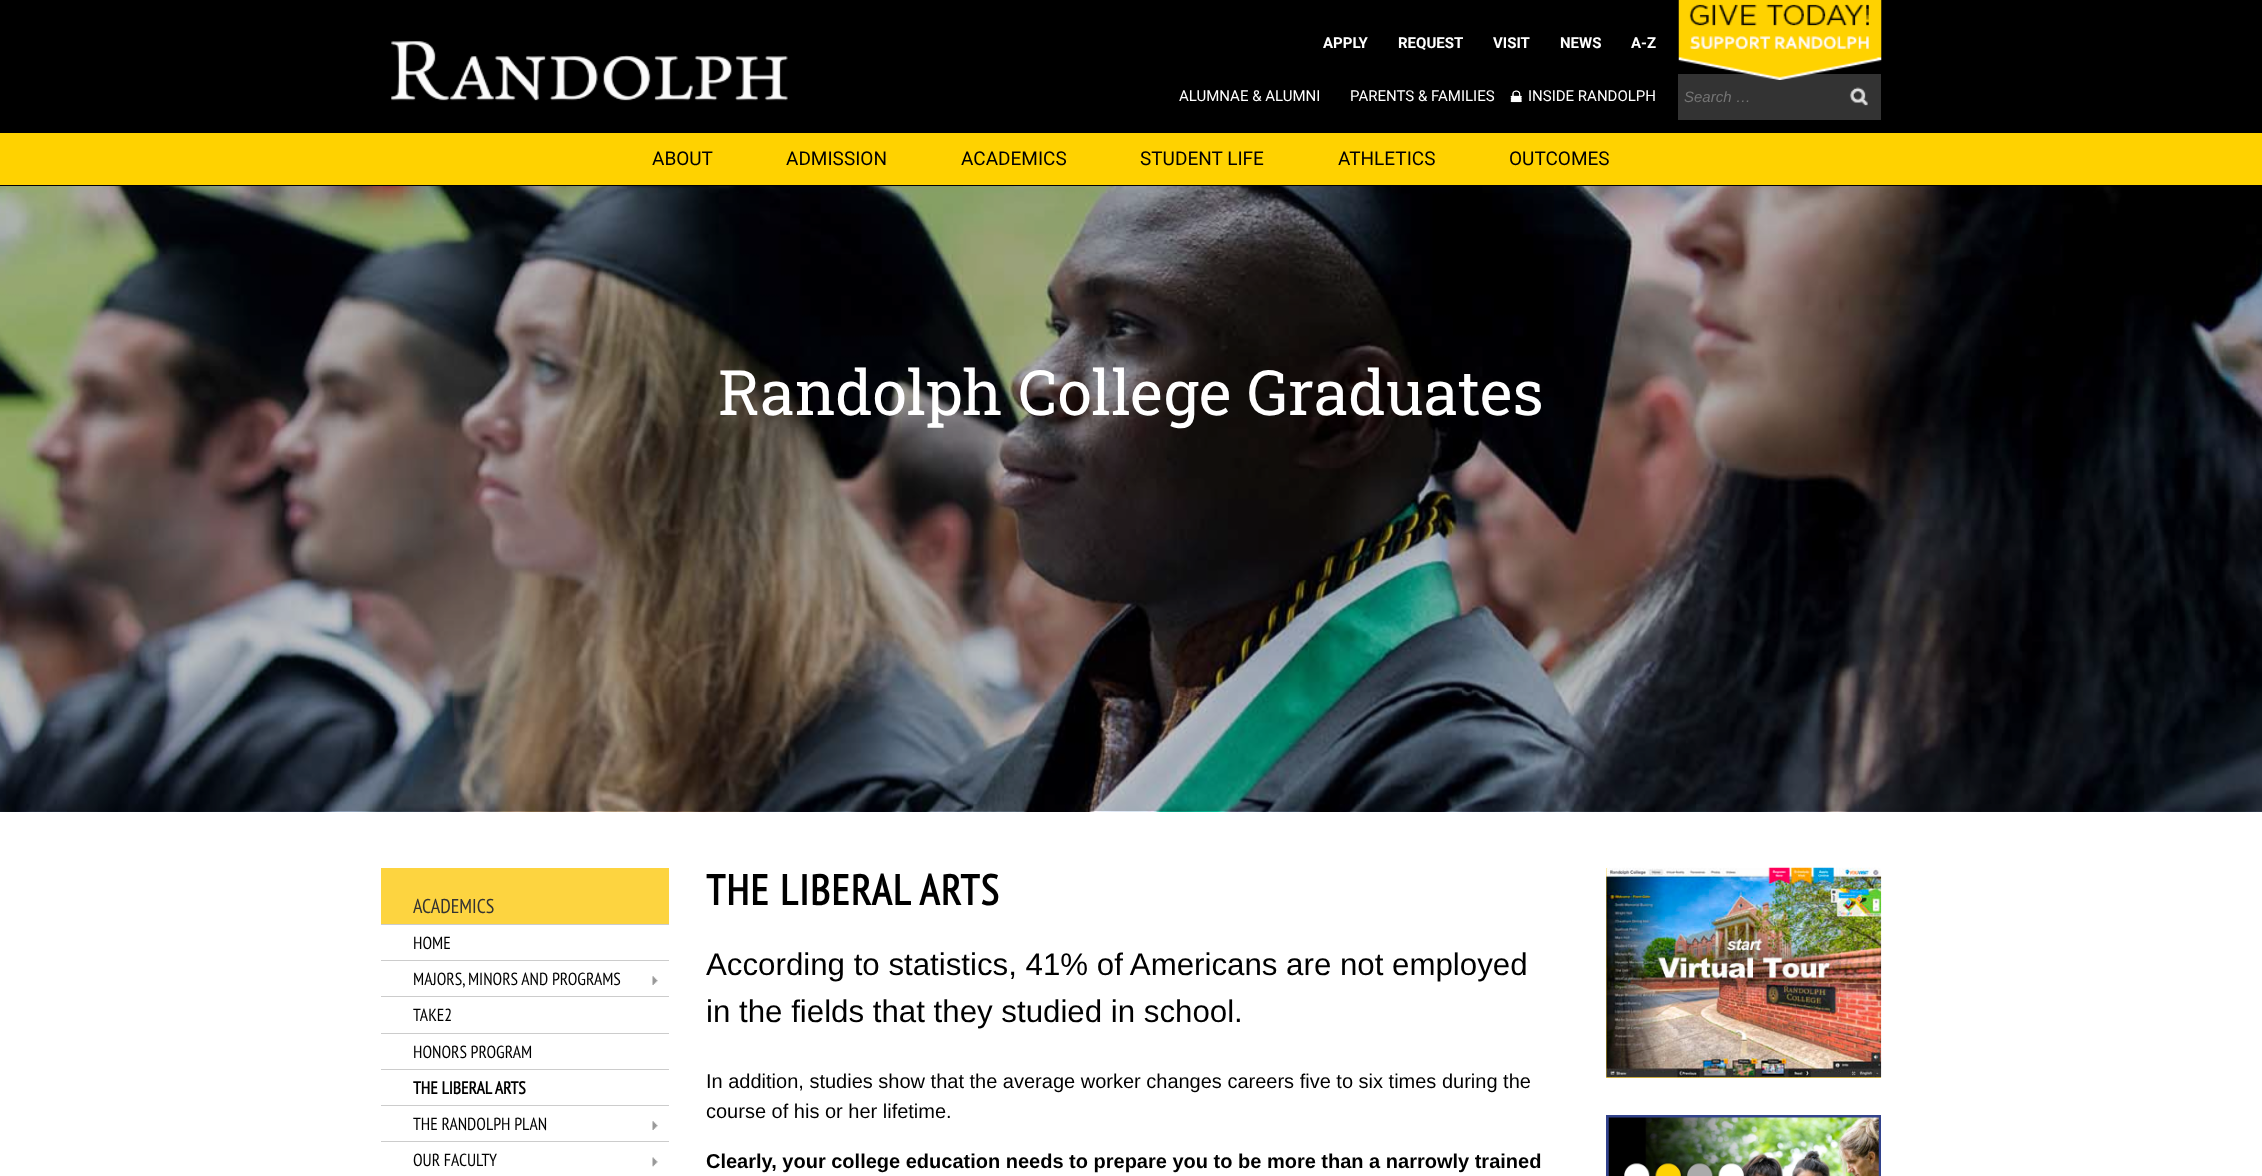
<!DOCTYPE html>
<meta charset="utf-8">
<style>body { margin: 0 } canvas { display: block }</style>
<canvas id="canvas" width="2262" height="1176"></canvas>
<script type="module">
  const canvas = document.getElementById("canvas");
  const g = canvas.getContext("2d");
  g.miterLimit = 4;
  g.fontKerning = "normal";
  function drawText(s, x, y, [font, color]) {
    g.font = font;
    g.fillStyle = color;
    g.fillText(s, x, y);
  }
  function fillBox(x, y, w, h, color) {
    g.fillStyle = color;
    g.fillRect(x, y, w, h);
  }
  async function drawPicture(src, x, y, w, h) {
    const img = new Image();
    img.src = src;
    await img.decode();
    g.drawImage(img, x, y, w, h);
  }

  const s1 = ["bold 15px Roboto", "#FFFFFF"];
  const s2 = ["15px Roboto", "#FFFFFF"];
  const s3 = ["italic 15px Liberation Sans", "#757575"];
  const s4 = ["19px Roboto", "#000000"];
  const s5 = ["62.5px Roboto Slab", "#FFFFFF"];
  const s6 = ["20px PT Sans Narrow", "#333333"];
  const s7 = ["17.5px PT Sans Narrow", "#000000"];
  const s8 = ["bold 17.5px PT Sans Narrow", "#000000"];
  const s9 = ["bold 42.5px PT Sans Narrow", "#000000"];
  const s10 = ["31.25px Liberation Sans", "#000000"];
  const s11 = ["20px Liberation Sans", "#000000"];
  const s12 = ["bold 20px Liberation Sans", "#000000"];

  fillBox(0, 0, 2262, 1176, "#FFFFFF");
  fillBox(0, 0, 2262, 186, "#000000");
  await drawPicture("pic1.png", 391, 41, 397, 60);
  drawText("APPLY", 1323, 48, s1);
  drawText("REQUEST", 1398, 48, s1);
  drawText("VISIT", 1493, 48, s1);
  drawText("NEWS", 1560, 48, s1);
  drawText("A-Z", 1631, 48, s1);
  fillBox(1678, 74, 203, 46, "#333333");
  await drawPicture("pic2.png", 1678, 0, 204, 80);
  drawText("ALUMNAE & ALUMNI", 1179, 101, s2);
  drawText("PARENTS & FAMILIES", 1350, 101, s2);
  await drawPicture("pic3.png", 1510, 90, 12, 13);
  drawText("INSIDE RANDOLPH", 1528, 101, s2);
  drawText("Search …", 1684, 102, s3);
  await drawPicture("pic4.png", 1849, 87, 19, 19);
  fillBox(0, 133, 2262, 52, "#FFD200");
  drawText("ABOUT", 652, 165, s4);
  drawText("ADMISSION", 786, 165, s4);
  drawText("ACADEMICS", 961, 165, s4);
  drawText("STUDENT LIFE", 1140, 165, s4);
  drawText("ATHLETICS", 1338, 165, s4);
  drawText("OUTCOMES", 1509, 165, s4);
  await drawPicture("pic5.png", 0, 186, 2262, 626);
  drawText("Randolph College Graduates", 718, 415, s5);
  fillBox(381, 868, 288, 56, "#FDD440");
  drawText("ACADEMICS", 413, 913, s6);
  fillBox(381, 924, 288, 1, "#CCCCCC");
  drawText("HOME", 413, 949, s7);
  await drawPicture("pic6.png", 652, 976, 6, 9);
  fillBox(381, 960, 288, 1, "#CCCCCC");
  drawText("MAJORS, MINORS AND PROGRAMS", 413, 985, s7);
  fillBox(381, 996, 288, 1, "#CCCCCC");
  drawText("TAKE2", 413, 1021, s7);
  fillBox(381, 1033, 288, 1, "#CCCCCC");
  drawText("HONORS PROGRAM", 413, 1058, s7);
  fillBox(381, 1069, 288, 1, "#CCCCCC");
  drawText("THE LIBERAL ARTS", 413, 1094, s8);
  await drawPicture("pic6.png", 652, 1121, 6, 9);
  fillBox(381, 1105, 288, 1, "#CCCCCC");
  drawText("THE RANDOLPH PLAN", 413, 1130, s7);
  await drawPicture("pic7.png", 652, 1157, 6, 10);
  fillBox(381, 1141, 288, 1, "#CCCCCC");
  drawText("OUR FACULTY", 413, 1166, s7);
  g.letterSpacing = "1.25px";
  drawText("THE LIBERAL ARTS", 706, 905, s9);
  g.letterSpacing = "0px";
  drawText("According to statistics, 41% of Americans are not employed", 706, 975, s10);
  drawText("in the fields that they studied in school.", 706, 1022, s10);
  drawText("In addition, studies show that the average worker changes careers five to six times during the", 706, 1088, s11);
  drawText("course of his or her lifetime.", 706, 1118, s11);
  drawText("Clearly, your college education needs to prepare you to be more than a narrowly trained", 706, 1168, s12);
  fillBox(1606, 868, 275, 210, "#FDD440");
  await drawPicture("pic8.png", 1606, 867, 276, 211);
  g.strokeStyle = "#32428B";
  g.lineWidth = 3;
  g.strokeRect(1607.5, 1116.5, 272, 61);
  await drawPicture("pic9.png", 1608, 1117, 271, 59);
</script>
